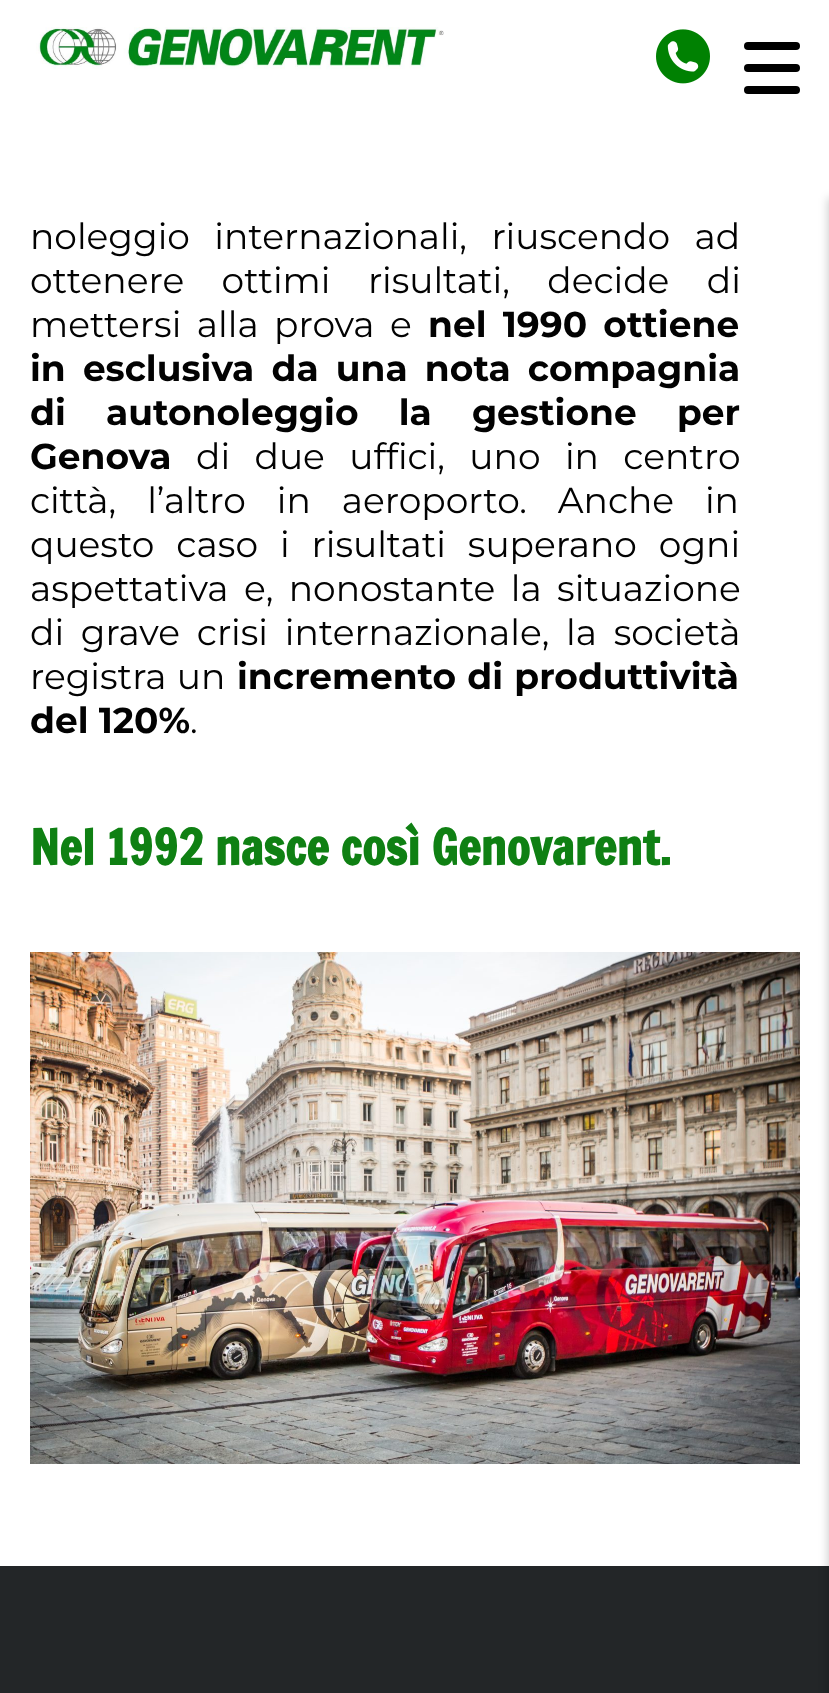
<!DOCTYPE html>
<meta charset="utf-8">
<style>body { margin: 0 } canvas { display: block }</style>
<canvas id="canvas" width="829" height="1693"></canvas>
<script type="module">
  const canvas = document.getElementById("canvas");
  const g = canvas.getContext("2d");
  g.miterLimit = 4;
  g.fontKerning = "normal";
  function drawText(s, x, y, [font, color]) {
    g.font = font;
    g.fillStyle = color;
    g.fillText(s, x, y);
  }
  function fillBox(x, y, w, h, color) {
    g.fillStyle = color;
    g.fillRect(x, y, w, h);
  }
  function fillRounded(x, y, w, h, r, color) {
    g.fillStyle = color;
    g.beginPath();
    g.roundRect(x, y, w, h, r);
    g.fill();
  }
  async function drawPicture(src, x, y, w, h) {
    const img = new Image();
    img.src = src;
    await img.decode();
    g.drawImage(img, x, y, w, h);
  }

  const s1 = ["36px Montserrat", "#020202"];
  const s2 = ["bold 36px Montserrat", "#020202"];
  const s3 = ["bold 48px Francois One", "#0F8013"];

  fillBox(0, 0, 829, 1693, "#FFFFFF");
  await drawPicture("pic1.png", 36, 27, 408, 43);
  await drawPicture("pic2.png", 656, 29, 54, 55);
  fillRounded(744, 42, 56, 8, 4, "#000000");
  fillRounded(744, 64, 56, 8, 4, "#000000");
  fillRounded(744, 86, 56, 8, 4, "#000000");
  fillBox(0, 1566, 829, 127, "#232628");
  g.fillStyle = "rgba(0, 0, 0, 0.2)";
  g.filter = "blur(5px)";
  g.beginPath();
  g.rect(828, 198, 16, 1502);
  g.fill();
  g.filter = "none";
  g.wordSpacing = "15px";
  drawText("noleggio internazionali, riuscendo ad", 30, 249, s1);
  g.wordSpacing = "28px";
  drawText("ottenere ottimi risultati, decide di", 30, 293, s1);
  g.wordSpacing = "6px";
  drawText("mettersi alla prova e", 30, 337, s1);
  drawText("nel 1990 ottiene", 428, 337, s2);
  g.wordSpacing = "7px";
  drawText("in esclusiva da una nota compagnia", 30, 381, s2);
  g.wordSpacing = "30px";
  drawText("di autonoleggio la gestione per", 30, 425, s2);
  g.wordSpacing = "0px";
  drawText("Genova", 30, 469, s2);
  g.wordSpacing = "15px";
  drawText("di due uffici, uno in centro", 196, 469, s1);
  g.wordSpacing = "21.5px";
  drawText("città, l’altro in aeroporto. Anche in", 30, 513, s1);
  g.wordSpacing = "12.5px";
  drawText("questo caso i risultati superano ogni", 30, 557, s1);
  g.wordSpacing = "6px";
  drawText("aspettativa e, nonostante la situazione", 30, 601, s1);
  g.wordSpacing = "7.25px";
  drawText("di grave crisi internazionale, la società", 30, 645, s1);
  g.wordSpacing = "1px";
  drawText("registra un", 30, 689, s1);
  drawText("incremento di produttività", 237, 689, s2);
  g.wordSpacing = "0px";
  drawText("del 120%", 30, 733, s2);
  drawText(".", 190, 733, s1);
  drawText("Nel 1992 nasce così Genovarent.", 30, 865, s3);
  await drawPicture("pic3.png", 30, 952, 770, 512);
</script>
